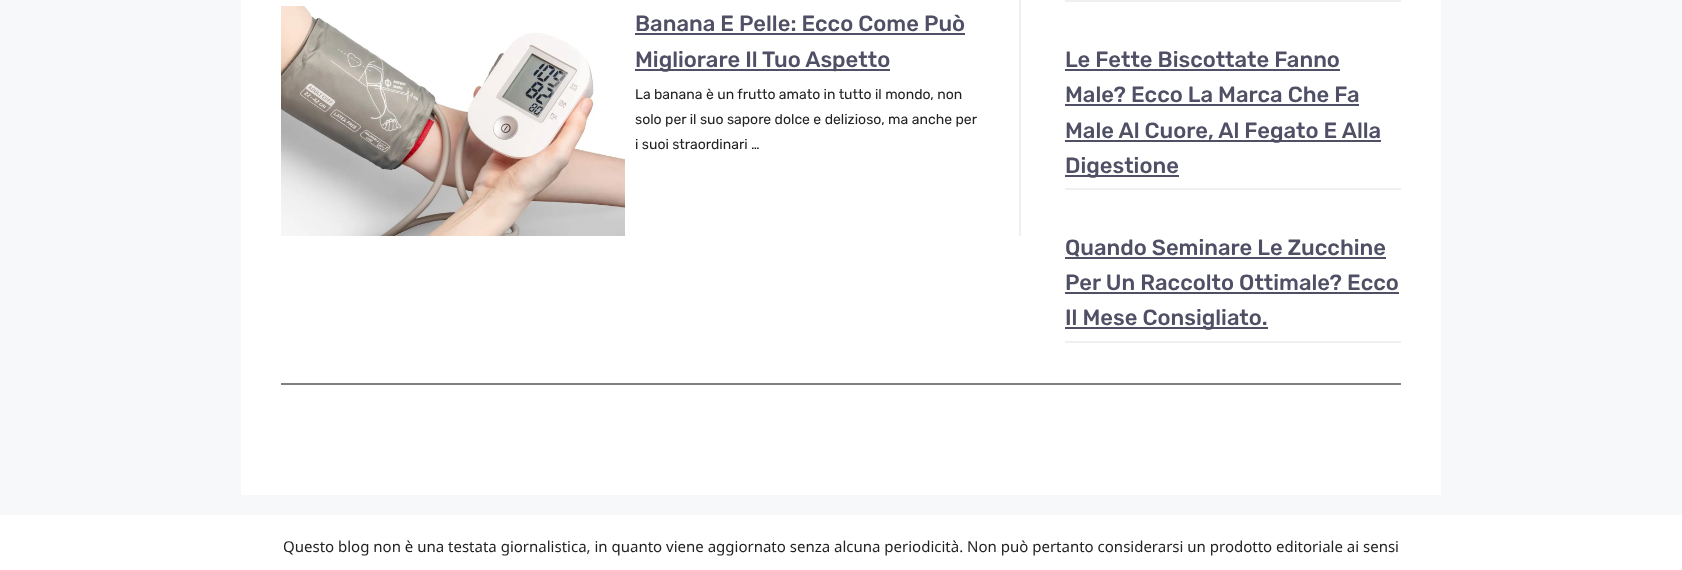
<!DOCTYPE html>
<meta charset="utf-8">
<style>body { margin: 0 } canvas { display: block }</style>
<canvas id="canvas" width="1682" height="570"></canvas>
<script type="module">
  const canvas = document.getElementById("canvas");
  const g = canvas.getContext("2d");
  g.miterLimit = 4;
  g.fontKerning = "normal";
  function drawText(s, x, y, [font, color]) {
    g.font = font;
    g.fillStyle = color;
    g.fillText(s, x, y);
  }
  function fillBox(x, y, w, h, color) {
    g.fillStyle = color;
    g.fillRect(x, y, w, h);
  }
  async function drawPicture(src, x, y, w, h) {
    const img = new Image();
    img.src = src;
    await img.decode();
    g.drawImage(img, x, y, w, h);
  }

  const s1 = ["500 22px Rubik", "#4F4F65"];
  const s2 = ["14px Rubik", "#222222"];
  const s3 = ["15px Noto Sans", "#222222"];

  fillBox(0, 0, 1682, 570, "#F7F8F9");
  fillBox(241, 0, 1200, 495, "#FFFFFF");
  fillBox(1019, 0, 2, 236, "#F0F0F0");
  await drawPicture("pic1.png", 281, 6, 344, 230);
  drawText("Banana E Pelle: Ecco Come Può", 635, 31, s1);
  fillBox(635, 33, 330, 2, "#4F4F65");
  fillBox(635, 69, 255, 2, "#4F4F65");
  drawText("Migliorare Il Tuo Aspetto", 635, 67, s1);
  drawText("La banana è un frutto amato in tutto il mondo, non", 635, 99, s2);
  drawText("solo per il suo sapore dolce e delizioso, ma anche per", 635, 124, s2);
  drawText("i suoi straordinari …", 635, 149, s2);
  fillBox(1065, 0, 336, 2, "#F0F0F0");
  fillBox(1065, 188, 336, 2, "#F0F0F0");
  drawText("Le Fette Biscottate Fanno", 1065, 67, s1);
  fillBox(1065, 69, 275, 2, "#4F4F65");
  drawText("Male? Ecco La Marca Che Fa", 1065, 102, s1);
  fillBox(1065, 104, 294, 2, "#4F4F65");
  fillBox(1065, 140, 316, 2, "#4F4F65");
  drawText("Male Al Cuore, Al Fegato E Alla", 1065, 138, s1);
  fillBox(1065, 175, 114, 2, "#4F4F65");
  drawText("Digestione", 1065, 173, s1);
  fillBox(1065, 341, 336, 2, "#F0F0F0");
  drawText("Quando Seminare Le Zucchine", 1065, 255, s1);
  fillBox(1065, 257, 321, 2, "#4F4F65");
  drawText("Per Un Raccolto Ottimale? Ecco", 1065, 290, s1);
  fillBox(1065, 292, 334, 2, "#4F4F65");
  fillBox(1065, 327, 203, 2, "#4F4F65");
  drawText("Il Mese Consigliato.", 1065, 325, s1);
  fillBox(281, 383, 1120, 2, "#808080");
  fillBox(0, 515, 1682, 55, "#FFFFFF");
  drawText("Questo blog non è una testata giornalistica, in quanto viene aggiornato senza alcuna periodicità. Non può pertanto considerarsi un prodotto editoriale ai sensi", 283, 552, s3);
</script>
